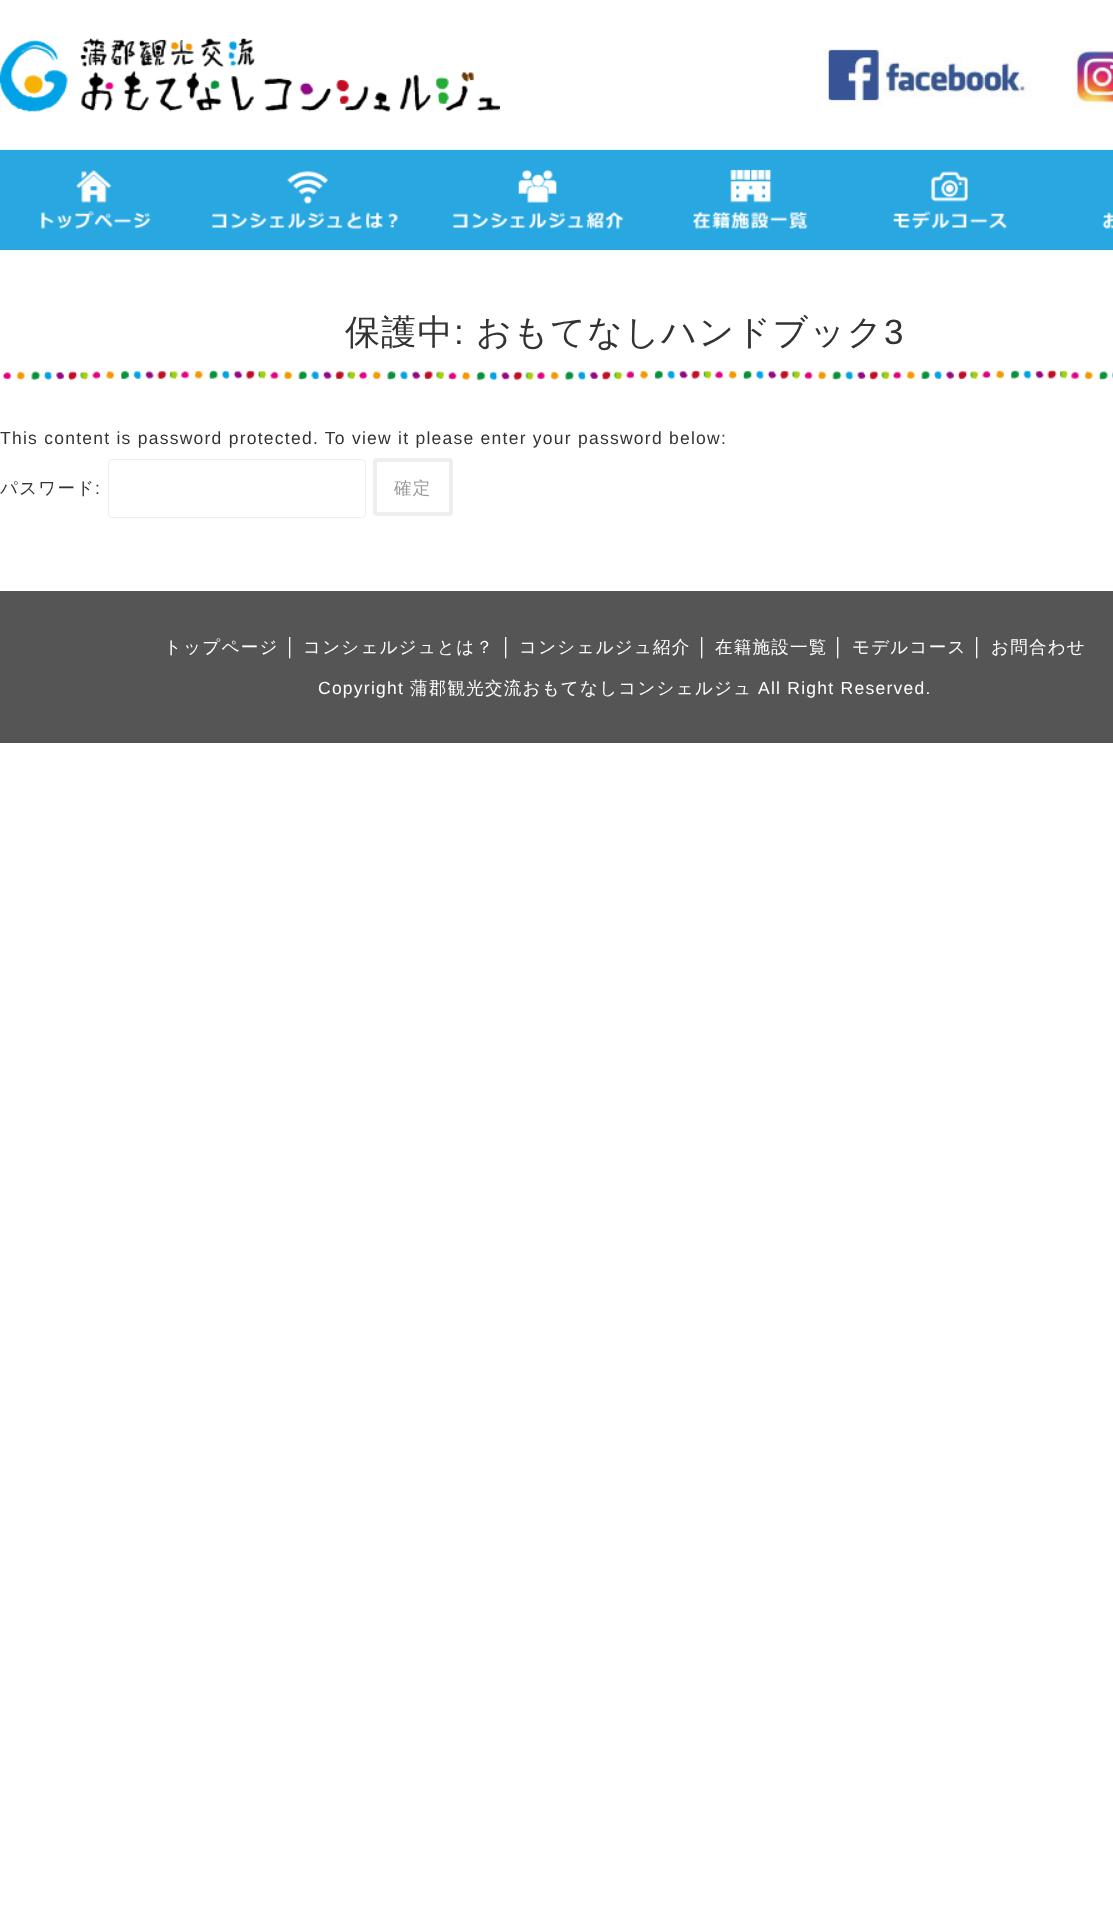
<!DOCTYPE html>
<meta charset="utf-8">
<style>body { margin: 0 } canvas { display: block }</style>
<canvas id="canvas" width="1113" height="1907"></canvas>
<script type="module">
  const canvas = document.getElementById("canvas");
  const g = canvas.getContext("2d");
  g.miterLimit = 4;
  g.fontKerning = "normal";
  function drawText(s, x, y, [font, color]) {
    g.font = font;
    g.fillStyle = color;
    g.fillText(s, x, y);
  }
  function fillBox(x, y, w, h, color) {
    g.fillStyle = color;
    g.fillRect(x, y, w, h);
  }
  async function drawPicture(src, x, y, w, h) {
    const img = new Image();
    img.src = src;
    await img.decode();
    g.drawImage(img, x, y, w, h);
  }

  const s1 = ["500 35px WenQuanYi Zen Hei", "#333333"];
  const s2 = ["35px Liberation Sans", "#333333"];
  const s3 = ["17.5px Liberation Sans", "#333333"];
  const s4 = ["500 17.5px WenQuanYi Zen Hei", "#333333"];
  const s5 = ["500 17.5px WenQuanYi Zen Hei", "#999999"];
  const s6 = ["500 17.5px WenQuanYi Zen Hei", "#FFFFFF"];
  const s7 = ["17.5px Liberation Sans", "#FFFFFF"];

  fillBox(0, 0, 1113, 1907, "#FFFFFF");
  await drawPicture("pic1.png", 0, 149, 1113, 101);
  await drawPicture("pic2.png", 0, 38, 500, 74);
  await drawPicture("pic3.png", 822, 47, 211, 61);
  await drawPicture("pic4.png", 1072, 47, 41, 61);
  await drawPicture("pic5.png", 0, 150, 188, 79);
  await drawPicture("pic6.png", 187, 150, 238, 79);
  await drawPicture("pic7.png", 425, 150, 225, 79);
  await drawPicture("pic8.png", 650, 150, 200, 79);
  await drawPicture("pic9.png", 850, 150, 200, 79);
  await drawPicture("pic10.png", 1050, 150, 63, 79);
  await drawPicture("pic11.png", 2, 370, 1111, 11);
  g.letterSpacing = "1.25px";
  drawText("保護中", 345, 344, s1);
  drawText(":", 454, 344, s2);
  drawText("おもてなしハンドブック", 476, 344, s1);
  drawText("3", 884, 344, s2);
  drawText("This content is password protected. To view it please enter your password below:", 0, 444, s3);
  drawText("パスワード", 0, 494, s4);
  drawText(":", 95, 494, s3);
  g.beginPath();
  g.roundRect(108.5, 459.5, 257, 58, 3.5);
  g.strokeStyle = "#EEEEEE";
  g.stroke();
  g.beginPath();
  g.roundRect(375, 460, 76, 54, 2);
  g.lineWidth = 4;
  g.stroke();
  drawText("確定", 394, 494, s5);
  fillBox(0, 591, 1113, 152, "#555555");
  drawText("トップページ", 164, 653, s6);
  drawText("│", 285, 653, s7);
  drawText("コンシェルジュとは？", 303, 653, s6);
  drawText("│", 501, 653, s7);
  drawText("コンシェルジュ紹介", 519, 653, s6);
  drawText("│", 697, 653, s7);
  drawText("在籍施設一覧", 715, 653, s6);
  drawText("│", 833, 653, s7);
  drawText("モデルコース", 852, 653, s6);
  drawText("│", 972, 653, s7);
  drawText("お問合わせ", 991, 653, s6);
  drawText("Copyright", 318, 694, s7);
  drawText("蒲郡観光交流おもてなしコンシェルジュ", 410, 694, s6);
  drawText("All Right Reserved.", 758, 694, s7);
</script>
